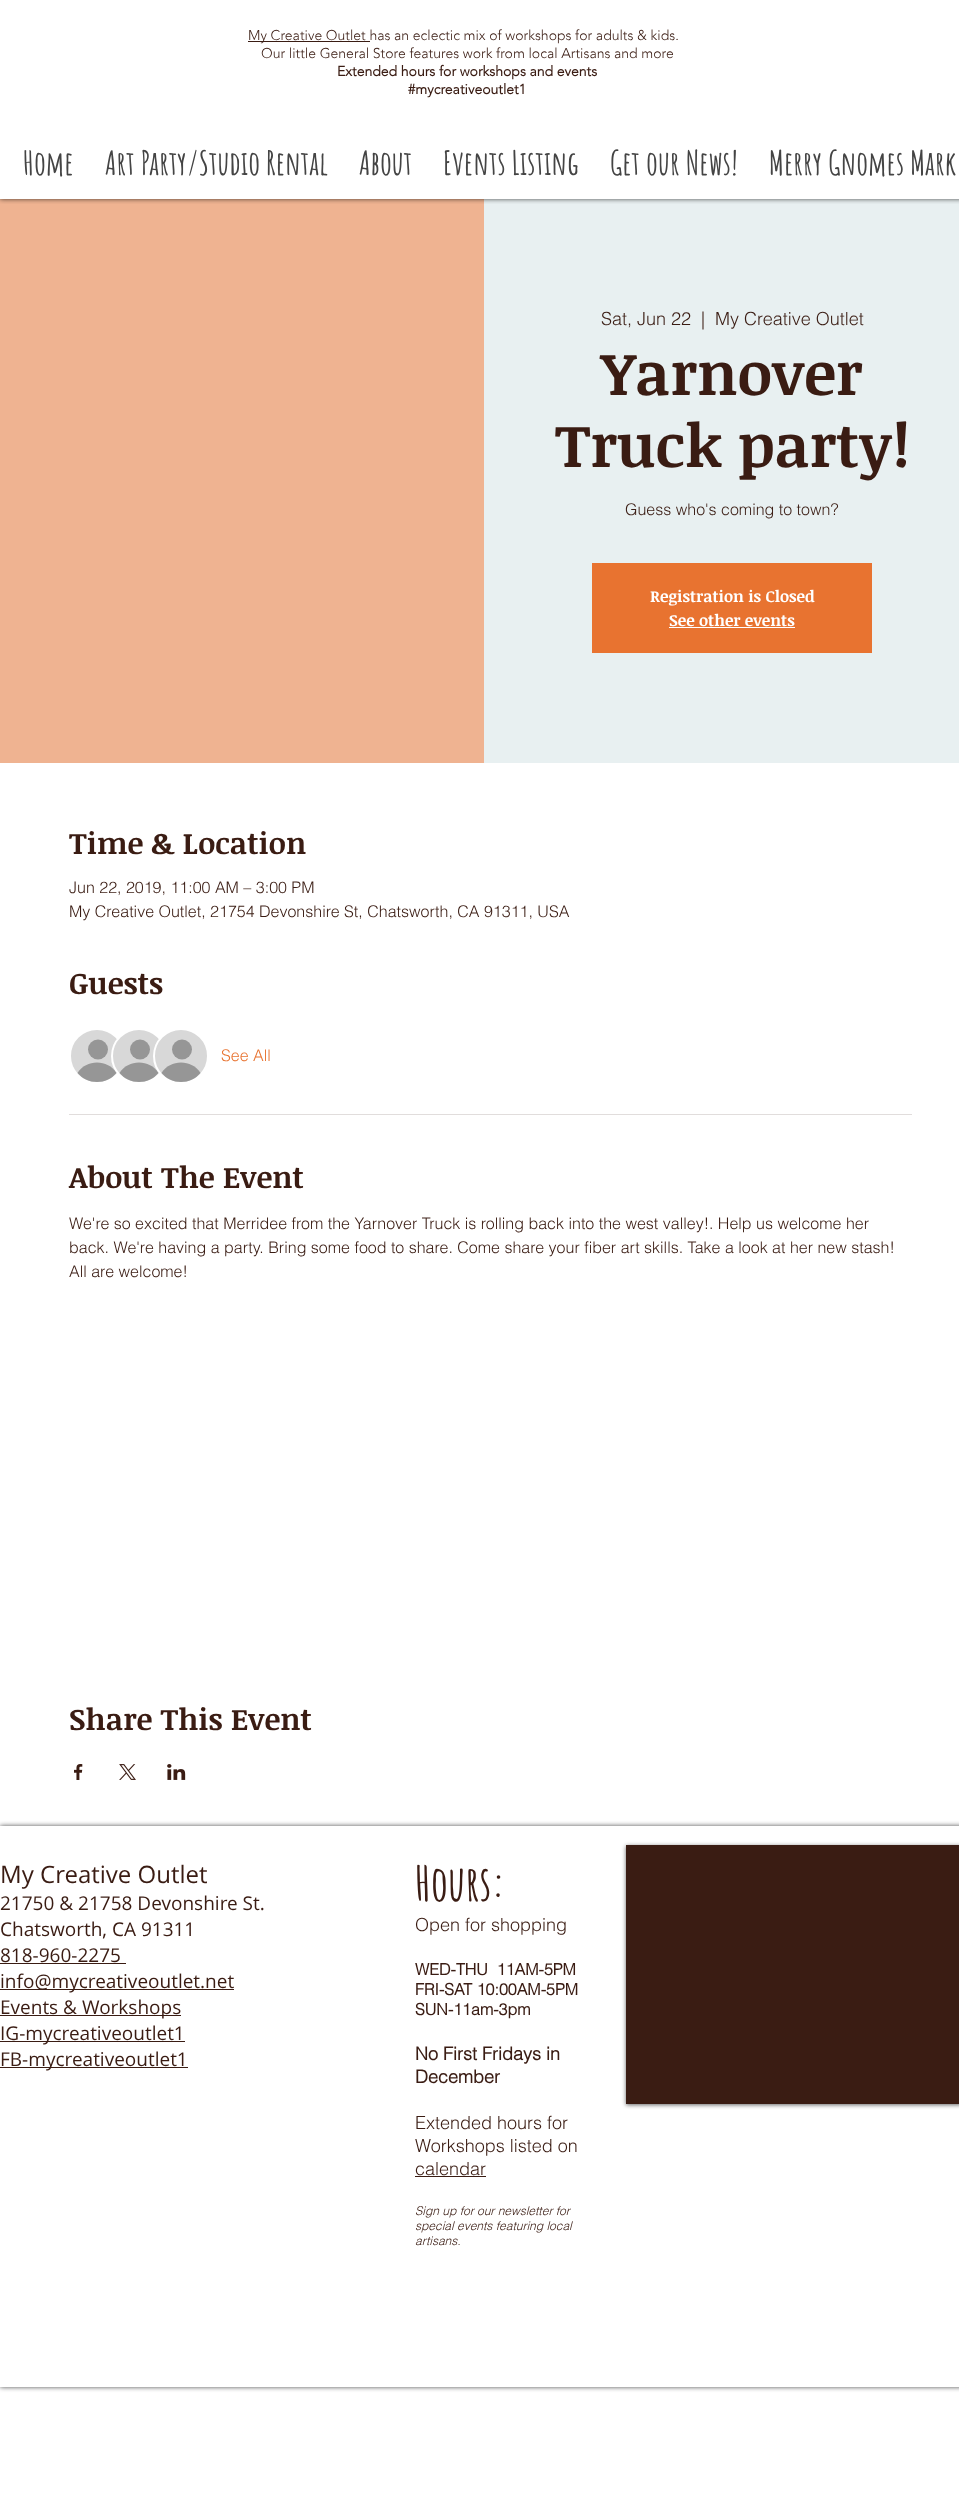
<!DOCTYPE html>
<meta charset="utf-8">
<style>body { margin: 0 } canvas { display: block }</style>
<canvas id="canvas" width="959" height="2504"></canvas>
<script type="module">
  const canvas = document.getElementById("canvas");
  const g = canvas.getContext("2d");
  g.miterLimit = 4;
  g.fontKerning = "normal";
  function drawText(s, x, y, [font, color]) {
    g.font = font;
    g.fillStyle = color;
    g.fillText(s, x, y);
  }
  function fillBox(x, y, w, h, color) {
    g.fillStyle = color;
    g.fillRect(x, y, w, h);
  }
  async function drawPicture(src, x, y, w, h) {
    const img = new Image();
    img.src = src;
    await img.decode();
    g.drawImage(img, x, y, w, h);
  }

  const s1 = ["300 14px 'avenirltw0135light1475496'", "#3A1C13"];
  const s2 = ["bold 14px 'avenirltw0135light1475496'", "#3A1C13"];
  const s3 = ["bold 33px Amatic SC", "#444444"];
  const s4 = ["300 18px helvetica", "#3A1C13"];
  const s5 = ["bold 60px Noticia Text", "#3A1C13"];
  const s6 = ["300 16px helvetica", "#3A1C13"];
  const s7 = ["bold 16px Noticia Text", "#FFFFFF"];
  const s8 = ["bold 30px Noticia Text", "#3A1C13"];
  const s9 = ["300 16px helvetica", "#E87330"];
  const s10 = ["24px Open Sans", "#3A1C13"];
  const s11 = ["19px Open Sans", "#3A1C13"];
  const s12 = ["bold 48px Amatic SC", "#3A1C13"];
  const s13 = ["bold 16px helvetica", "#3A1C13"];
  const s14 = ["bold 18px helvetica", "#3A1C13"];
  const s15 = ["italic 300 12px helvetica", "#3A1C13"];

  fillBox(0, 0, 959, 2504, "#FFFFFF");
  fillBox(0, 199, 484, 564, "#EFB391");
  fillBox(484, 199, 475, 564, "#E8F0F1");
  g.save();
  g.beginPath();
  g.rect(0, 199, 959, 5);
  g.clip();
  g.fillStyle = "rgba(0, 0, 0, 0.7)";
  g.filter = "blur(2.5px)";
  g.beginPath();
  g.rect(0, 0, 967, 199);
  g.fill();
  g.filter = "none";
  g.restore();
  fillBox(248, 41, 122, 1, "#3A1C13");
  drawText("My Creative Outlet has an eclectic mix of workshops for adults & kids.", 248, 40, s1);
  drawText("Our little General Store features work from local Artisans and more", 261, 58, s1);
  drawText("Extended hours for workshops and events", 337, 76, s2);
  drawText("#mycreativeoutlet1", 408, 94, s2);
  drawText("Home", 23, 175, s3);
  drawText("Art Party/Studio Rental", 105, 175, s3);
  drawText("About", 359, 175, s3);
  drawText("Events Listing", 443, 175, s3);
  drawText("Get our News!", 610, 175, s3);
  drawText("Merry Gnomes Mark", 769, 175, s3);
  drawText("Sat, Jun 22", 601, 325, s4);
  drawText("|", 701, 325, s4);
  drawText("My Creative Outlet", 715, 325, s4);
  drawText("Yarnover", 601, 395, s5);
  drawText("Truck party!", 555, 467, s5);
  drawText("Guess who's coming to town?", 625, 515, s6);
  fillBox(592, 563, 280, 90, "#E87330");
  drawText("Registration is Closed", 650, 602, s7);
  drawText("See other events", 669, 626, s7);
  fillBox(669, 627, 126, 1, "#FFFFFF");
  drawText("Time & Location", 69, 854, s8);
  drawText("Jun 22, 2019, 11:00 AM – 3:00 PM", 69, 893, s6);
  drawText("My Creative Outlet, 21754 Devonshire St, Chatsworth, CA 91311, USA", 69, 917, s6);
  drawText("Guests", 69, 994, s8);
  g.fillStyle = "#D8D8D8";
  g.beginPath();
  g.arc(97, 1056, 27, 0, Math.PI * 2);
  g.fill();
  g.strokeStyle = "#FFFFFF";
  g.lineWidth = 2;
  g.stroke();
  g.fillStyle = "#969696";
  g.beginPath();
  g.arc(98, 1049.5, 10, 0, Math.PI * 2);
  g.fill();
  g.beginPath();
  g.moveTo(116.5, 1073);
  g.bezierCurveTo(106.5, 1085, 87.5, 1085, 77.5, 1073);
  g.bezierCurveTo(86, 1059, 108, 1059, 116.5, 1073);
  g.closePath();
  g.fill();
  g.fillStyle = "#D8D8D8";
  g.beginPath();
  g.arc(139, 1056, 27, 0, Math.PI * 2);
  g.fill();
  g.stroke();
  g.fillStyle = "#969696";
  g.beginPath();
  g.arc(140, 1049.5, 10, 0, Math.PI * 2);
  g.fill();
  g.beginPath();
  g.moveTo(158.5, 1073);
  g.bezierCurveTo(148.5, 1085, 129.5, 1085, 119.5, 1073);
  g.bezierCurveTo(128, 1059, 150, 1059, 158.5, 1073);
  g.closePath();
  g.fill();
  g.fillStyle = "#D8D8D8";
  g.beginPath();
  g.arc(181, 1056, 27, 0, Math.PI * 2);
  g.fill();
  g.stroke();
  g.fillStyle = "#969696";
  g.beginPath();
  g.arc(182, 1049.5, 10, 0, Math.PI * 2);
  g.fill();
  g.beginPath();
  g.moveTo(200.5, 1073);
  g.bezierCurveTo(190.5, 1085, 171.5, 1085, 161.5, 1073);
  g.bezierCurveTo(170, 1059, 192, 1059, 200.5, 1073);
  g.closePath();
  g.fill();
  drawText("See All", 221, 1061, s9);
  fillBox(69, 1114, 843, 1, "#E1DDDC");
  drawText("About The Event", 69, 1188, s8);
  drawText("We're so excited that Merridee from the Yarnover Truck is rolling back into the west valley!. Help us welcome her", 69, 1229, s6);
  drawText("back. We're having a party. Bring some food to share. Come share your fiber art skills. Take a look at her new stash!", 69, 1253, s6);
  drawText("All are welcome!", 69, 1277, s6);
  drawText("Share This Event", 69, 1730, s8);
  await drawPicture("pic1.png", 74, 1764, 9, 16);
  await drawPicture("pic2.png", 119, 1764, 17, 16);
  await drawPicture("pic3.png", 167, 1764, 19, 16);
  g.save();
  g.beginPath();
  g.moveTo(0, 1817);
  g.lineTo(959, 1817);
  g.lineTo(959, 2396);
  g.lineTo(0, 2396);
  g.closePath();
  g.moveTo(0, 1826);
  g.lineTo(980, 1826);
  g.lineTo(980, 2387);
  g.lineTo(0, 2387);
  g.closePath();
  g.clip("evenodd");
  g.fillStyle = "rgba(0, 0, 0, 0.7)";
  g.filter = "blur(2.5px)";
  g.beginPath();
  g.rect(0, 1826, 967, 561);
  g.fill();
  g.filter = "none";
  g.restore();
  drawText("My Creative Outlet", 0, 1883, s10);
  drawText("21750 & 21758 Devonshire St.", 0, 1910, s11);
  drawText("Chatsworth, CA 91311", 0, 1936, s11);
  drawText("818-960-2275", 0, 1962, s11);
  fillBox(0, 1963, 126, 1, "#3A1C13");
  fillBox(0, 1989, 234, 1, "#3A1C13");
  drawText("info@mycreativeoutlet.net", 0, 1988, s11);
  fillBox(0, 2015, 181, 1, "#3A1C13");
  drawText("Events & Workshops", 0, 2014, s11);
  fillBox(0, 2041, 185, 1, "#3A1C13");
  drawText("IG-mycreativeoutlet1", 0, 2040, s11);
  fillBox(0, 2067, 188, 1, "#3A1C13");
  drawText("FB-mycreativeoutlet1", 0, 2066, s11);
  drawText("Hours:", 415, 1901, s12);
  drawText("Open for shopping", 415, 1931, s4);
  drawText("WED-THU  11AM-5PM", 415, 1975, s13);
  drawText("FRI-SAT 10:00AM-5PM", 415, 1995, s13);
  drawText("SUN-11am-3pm", 415, 2015, s13);
  drawText("No First Fridays in", 415, 2060, s14);
  drawText("December", 415, 2083, s14);
  drawText("Extended hours for", 415, 2129, s4);
  drawText("Workshops listed on", 415, 2152, s4);
  drawText("calendar", 415, 2175, s4);
  fillBox(415, 2176, 71, 1, "#3A1C13");
  drawText("Sign up for our newsletter for", 415, 2215, s15);
  drawText("special events featuring local", 415, 2230, s15);
  drawText("artisans.", 415, 2245, s15);
  g.fillStyle = "rgba(0, 0, 0, 0.6)";
  g.filter = "blur(2px)";
  g.beginPath();
  g.rect(626, 1846, 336, 259);
  g.fill();
  g.filter = "none";
  fillBox(626, 1845, 333, 259, "#3A1C13");
</script>
